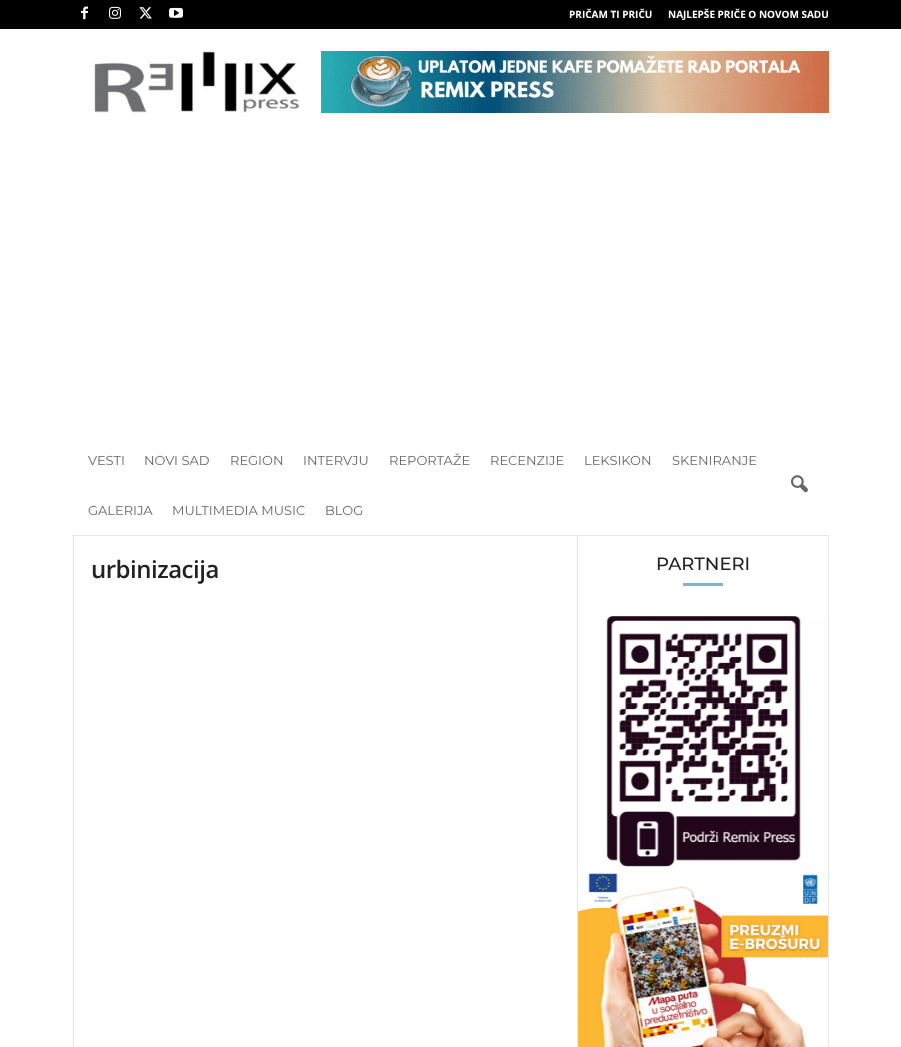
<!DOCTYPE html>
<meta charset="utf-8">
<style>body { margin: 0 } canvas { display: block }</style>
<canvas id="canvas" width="901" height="1047"></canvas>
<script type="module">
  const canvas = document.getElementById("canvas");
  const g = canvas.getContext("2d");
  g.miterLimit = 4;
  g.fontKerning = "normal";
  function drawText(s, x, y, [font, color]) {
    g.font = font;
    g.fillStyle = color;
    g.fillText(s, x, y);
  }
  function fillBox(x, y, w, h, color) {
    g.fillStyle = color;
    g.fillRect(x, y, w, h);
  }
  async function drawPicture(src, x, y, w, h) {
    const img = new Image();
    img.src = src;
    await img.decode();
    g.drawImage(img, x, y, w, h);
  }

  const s1 = ["bold 10px Open Sans", "#FFFFFF"];
  const s2 = ["13px Montserrat", "#666666"];
  const s3 = ["600 24px Open Sans", "#222222"];
  const s4 = ["500 18px Montserrat", "#222222"];

  fillBox(0, 0, 901, 1047, "#FFFFFF");
  fillBox(0, 0, 901, 29, "#000000");
  await drawPicture("pic1.png", 81, 6, 7, 14);
  await drawPicture("pic2.png", 109, 6, 12, 13);
  await drawPicture("pic3.png", 139, 7, 13, 12);
  await drawPicture("pic4.png", 169, 7, 14, 11);
  drawText("PRIČAM TI PRIČU", 569, 18, s1);
  drawText("NAJLEPŠE PRIČE O NOVOM SADU", 668, 18, s1);
  await drawPicture("pic5.png", 93, 51, 207, 62);
  await drawPicture("pic6.png", 321, 51, 508, 62);
  fillBox(73, 535, 1, 512, "#E6E6E6");
  fillBox(577, 535, 1, 512, "#E6E6E6");
  fillBox(828, 535, 1, 512, "#E6E6E6");
  fillBox(73, 535, 756, 1, "#E6E6E6");
  drawText("VESTI", 88, 465, s2);
  drawText("NOVI SAD", 144, 465, s2);
  drawText("REGION", 230, 465, s2);
  drawText("INTERVJU", 303, 465, s2);
  drawText("REPORTAŽE", 389, 465, s2);
  drawText("RECENZIJE", 490, 465, s2);
  drawText("LEKSIKON", 584, 465, s2);
  drawText("SKENIRANJE", 672, 465, s2);
  drawText("GALERIJA", 88, 515, s2);
  drawText("MULTIMEDIA MUSIC", 172, 515, s2);
  drawText("BLOG", 325, 515, s2);
  await drawPicture("pic7.png", 791, 475, 17, 18);
  g.letterSpacing = "-0.5px";
  drawText("urbinizacija", 91, 578, s3);
  g.letterSpacing = "0px";
  drawText("PARTNERI", 656, 570, s4);
  fillBox(683, 583, 40, 3, "#87AFC7");
  await drawPicture("pic8.png", 606, 616, 222, 251);
  await drawPicture("pic9.png", 577, 867, 251, 180);
</script>
